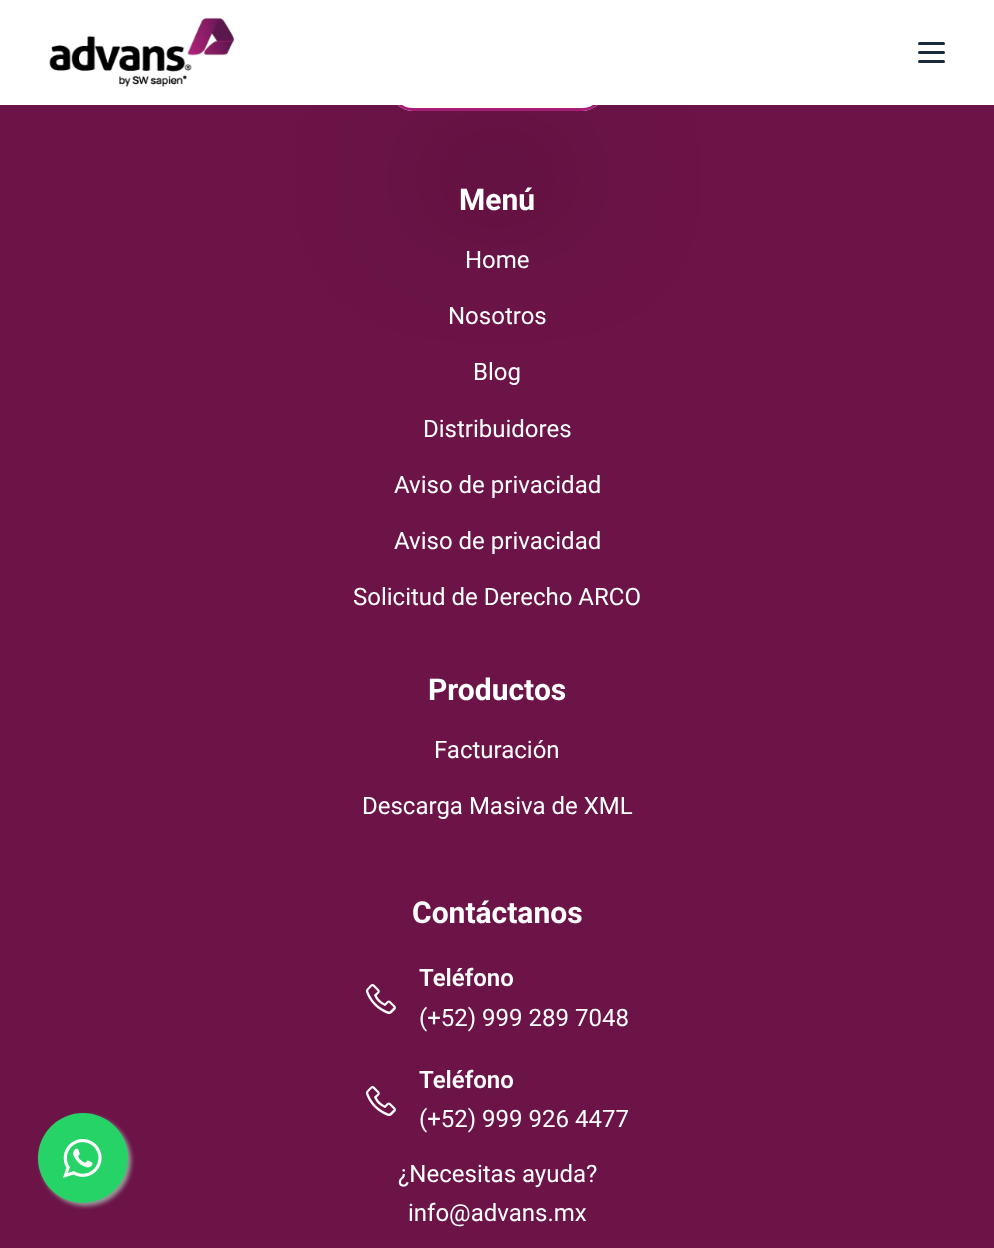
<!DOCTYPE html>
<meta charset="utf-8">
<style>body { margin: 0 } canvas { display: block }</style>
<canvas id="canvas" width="994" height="1248"></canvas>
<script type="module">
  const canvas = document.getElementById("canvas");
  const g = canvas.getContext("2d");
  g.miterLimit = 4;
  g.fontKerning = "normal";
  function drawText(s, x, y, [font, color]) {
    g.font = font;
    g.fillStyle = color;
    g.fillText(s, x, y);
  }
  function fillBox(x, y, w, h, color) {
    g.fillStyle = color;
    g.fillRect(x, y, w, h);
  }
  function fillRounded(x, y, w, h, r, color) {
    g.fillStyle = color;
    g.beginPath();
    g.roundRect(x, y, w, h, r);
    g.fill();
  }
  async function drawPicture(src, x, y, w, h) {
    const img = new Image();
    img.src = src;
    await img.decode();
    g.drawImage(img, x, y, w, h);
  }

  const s1 = ["bold 30px Roboto", "#FFFFFF"];
  const s2 = ["24px Roboto", "#FFFFFF"];
  const s3 = ["600 24px Roboto", "#FFFFFF"];

  fillBox(0, 0, 994, 1248, "#6C1448");
  g.fillStyle = "#999999";
  g.filter = "blur(2px)";
  g.beginPath();
  g.roundRect(41, 1116, 90, 90, 45);
  g.fill();
  g.filter = "none";
  g.fillStyle = "#25D366";
  g.beginPath();
  g.arc(83, 1158, 45, 0, Math.PI * 2);
  g.fill();
  await drawPicture("pic1.png", 63, 1139, 39, 39);
  fillRounded(390, 35, 215, 76, 23, "#FFFFFF");
  g.save();
  g.beginPath();
  g.moveTo(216, 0);
  g.lineTo(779, 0);
  g.lineTo(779, 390);
  g.lineTo(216, 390);
  g.closePath();
  g.moveTo(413, 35);
  g.lineTo(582, 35);
  g.bezierCurveTo(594.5, 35, 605, 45.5, 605, 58);
  g.lineTo(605, 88);
  g.bezierCurveTo(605, 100.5, 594.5, 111, 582, 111);
  g.lineTo(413, 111);
  g.bezierCurveTo(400.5, 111, 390, 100.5, 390, 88);
  g.lineTo(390, 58);
  g.bezierCurveTo(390, 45.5, 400.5, 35, 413, 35);
  g.closePath();
  g.clip("evenodd");
  g.fillStyle = "#000000";
  g.filter = "blur(67.5px)";
  g.beginPath();
  g.rect(420, 170, 155, 16);
  g.fill();
  g.filter = "none";
  g.restore();
  g.beginPath();
  g.roundRect(391.5, 36.5, 212, 73, 21.5);
  g.strokeStyle = "#A71C74";
  g.lineWidth = 3;
  g.stroke();
  fillBox(0, 0, 994, 105, "#FFFFFF");
  await drawPicture("pic2.png", 49, 17, 185, 70);
  fillRounded(918, 42, 27, 3, 1.5, "#192A3D");
  fillRounded(918, 51, 27, 3, 1.5, "#192A3D");
  fillRounded(918, 60, 27, 3, 1.5, "#192A3D");
  drawText("Menú", 459, 210, s1);
  drawText("Home", 465, 268, s2);
  drawText("Nosotros", 448, 324, s2);
  drawText("Blog", 473, 380, s2);
  drawText("Distribuidores", 423, 437, s2);
  drawText("Aviso de privacidad", 394, 493, s2);
  drawText("Aviso de privacidad", 394, 549, s2);
  drawText("Solicitud de Derecho ARCO", 353, 605, s2);
  drawText("Productos", 428, 700, s1);
  drawText("Facturación", 434, 758, s2);
  drawText("Descarga Masiva de XML", 362, 814, s2);
  drawText("Contáctanos", 412, 923, s1);
  await drawPicture("pic3.png", 366, 984, 30, 30);
  drawText("Teléfono", 419, 986, s3);
  drawText("(+52) 999 289 7048", 419, 1026, s2);
  await drawPicture("pic3.png", 366, 1086, 30, 30);
  drawText("Teléfono", 419, 1088, s3);
  drawText("(+52) 999 926 4477", 419, 1127, s2);
  drawText("¿Necesitas ayuda?", 398, 1182, s2);
  drawText("info@advans.mx", 408, 1221, s2);
</script>
